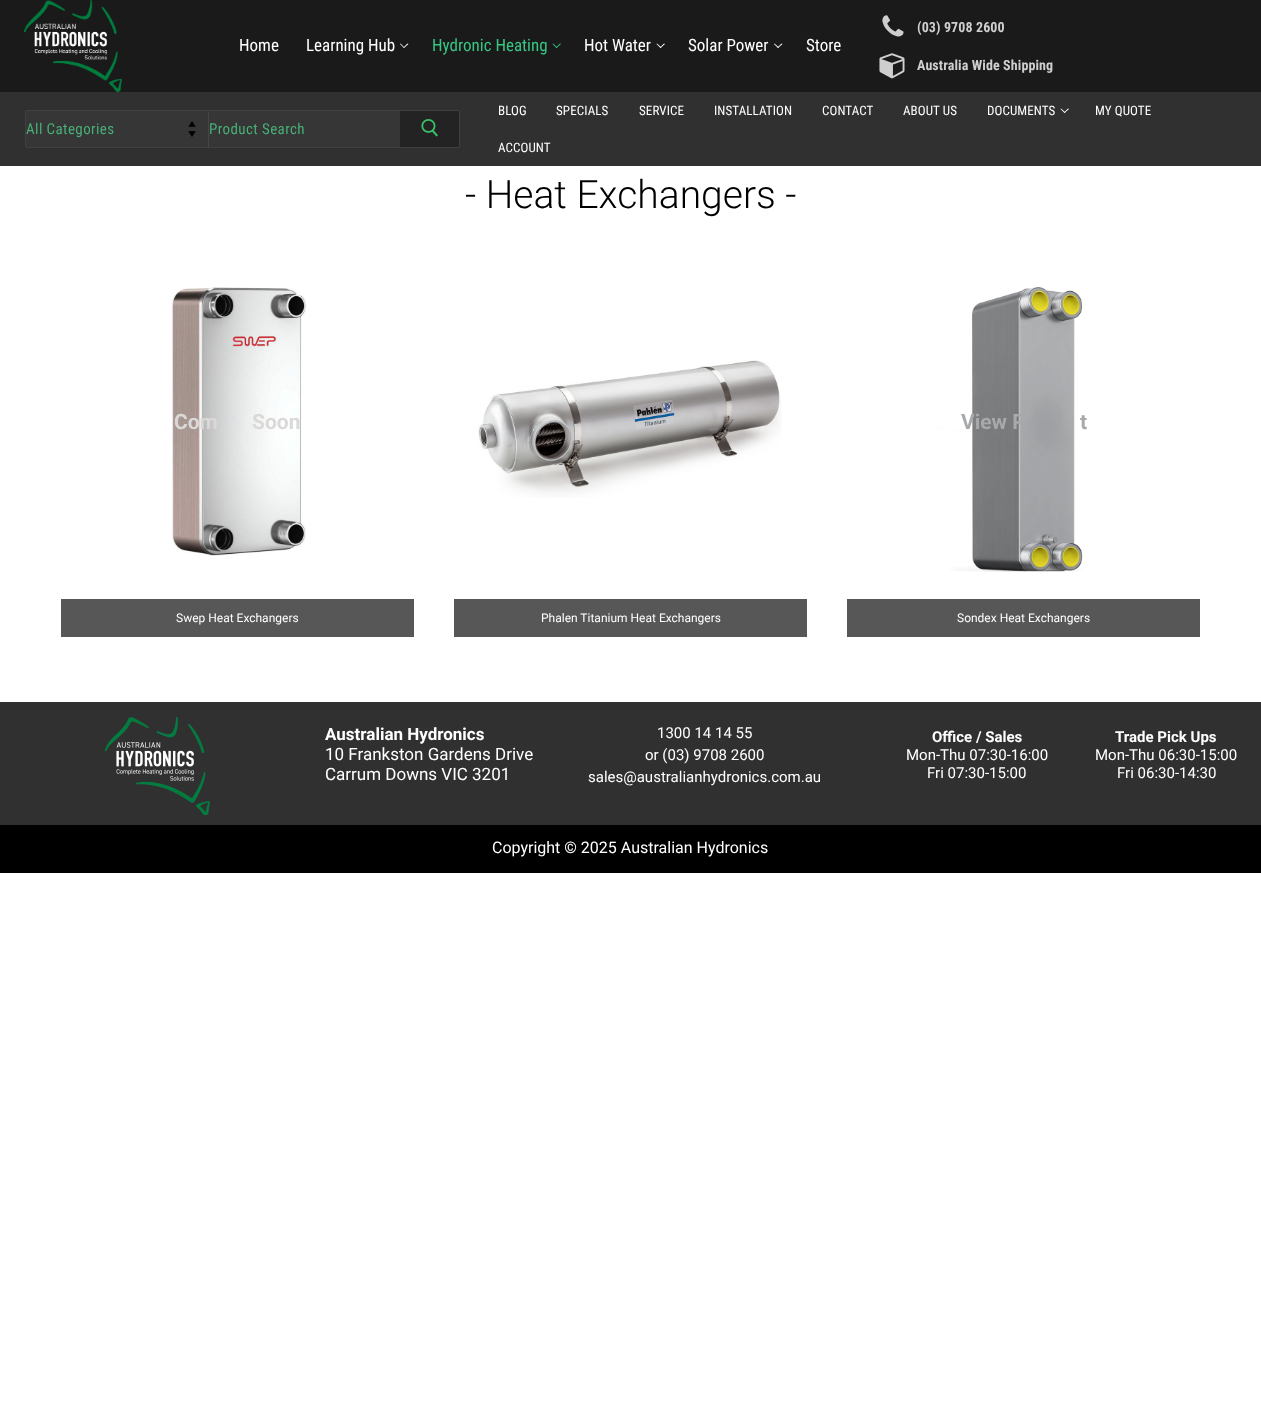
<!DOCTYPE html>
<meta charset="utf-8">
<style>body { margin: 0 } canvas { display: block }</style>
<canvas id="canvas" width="1261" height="1406"></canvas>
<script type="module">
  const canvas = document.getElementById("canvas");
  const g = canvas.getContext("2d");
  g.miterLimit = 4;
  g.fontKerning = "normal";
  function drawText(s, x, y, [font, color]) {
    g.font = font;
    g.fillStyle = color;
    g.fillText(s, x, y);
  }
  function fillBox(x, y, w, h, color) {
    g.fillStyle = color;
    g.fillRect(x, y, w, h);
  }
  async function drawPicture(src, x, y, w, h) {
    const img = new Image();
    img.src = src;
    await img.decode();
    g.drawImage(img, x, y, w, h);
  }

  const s1 = ["17px Roboto Condensed", "#FFFFFF"];
  const s2 = ["17px Roboto Condensed", "#37C684"];
  const s3 = ["bold 14px Roboto Condensed", "#CFCFCF"];
  const s4 = ["15px Roboto Condensed", "#48AF78"];
  const s5 = ["13px Roboto Condensed", "#FFFFFF"];
  const s6 = ["300 39px Roboto", "#000000"];
  const s7 = ["bold 21px Roboto", "#DBD9D7"];
  const s8 = ["12px Roboto", "#FFFFFF"];
  const s9 = ["bold 21px Roboto", "#A7A9AB"];
  const s10 = ["bold 17px Roboto", "#FFFFFF"];
  const s11 = ["17px Roboto", "#FFFFFF"];
  const s12 = ["15px Roboto", "#FFFFFF"];
  const s13 = ["bold 15px Roboto", "#FFFFFF"];
  const s14 = ["16px Roboto", "#FFFFFF"];

  fillBox(0, 0, 1261, 1406, "#FFFFFF");
  fillBox(0, 0, 1261, 92, "#1A1A1A");
  await drawPicture("pic1.png", 24, 0, 98, 92);
  drawText("Home", 239, 51, s1);
  drawText("Learning Hub", 306, 51, s1);
  g.beginPath();
  g.moveTo(404, 48);
  g.lineTo(400, 44);
  g.lineTo(400.5, 43.5);
  g.lineTo(404.5, 47.5);
  g.closePath();
  g.fill();
  g.beginPath();
  g.moveTo(404, 48);
  g.lineTo(403.5, 47.5);
  g.lineTo(407.5, 43.5);
  g.lineTo(408.5, 44);
  g.closePath();
  g.fill();
  drawText("Hydronic Heating", 432, 51, s2);
  g.beginPath();
  g.moveTo(556.5, 48);
  g.lineTo(552.5, 44);
  g.lineTo(553, 43.5);
  g.lineTo(557.5, 47.5);
  g.closePath();
  g.fill();
  g.beginPath();
  g.moveTo(556.5, 48);
  g.lineTo(556, 47.5);
  g.lineTo(560, 43.5);
  g.lineTo(561, 44);
  g.closePath();
  g.fill();
  drawText("Hot Water", 584, 51, s1);
  g.beginPath();
  g.moveTo(660.5, 48);
  g.lineTo(656.5, 44);
  g.lineTo(657, 43.5);
  g.lineTo(661.5, 47.5);
  g.closePath();
  g.fill();
  g.beginPath();
  g.moveTo(660.5, 48);
  g.lineTo(660, 47.5);
  g.lineTo(664, 43.5);
  g.lineTo(665, 44);
  g.closePath();
  g.fill();
  drawText("Solar Power", 688, 51, s1);
  g.beginPath();
  g.moveTo(778, 48);
  g.lineTo(774, 44);
  g.lineTo(774.5, 43.5);
  g.lineTo(779, 47.5);
  g.closePath();
  g.fill();
  g.beginPath();
  g.moveTo(778, 48);
  g.lineTo(777.5, 47.5);
  g.lineTo(781.5, 43.5);
  g.lineTo(782.5, 44);
  g.closePath();
  g.fill();
  drawText("Store", 806, 51, s1);
  await drawPicture("pic2.png", 882, 15, 22, 22);
  g.letterSpacing = "0.1px";
  drawText("(03) 9708 2600", 917, 32, s3);
  await drawPicture("pic3.png", 879, 53, 26, 26);
  drawText("Australia Wide Shipping", 917, 70, s3);
  fillBox(0, 92, 1261, 74, "#303030");
  g.beginPath();
  g.roundRect(25.5, 110.5, 434, 37, 1.5);
  g.strokeStyle = "#404040";
  g.stroke();
  fillBox(26, 111, 183, 36, "rgba(255, 255, 255, 0.03)");
  await drawPicture("pic4.png", 188, 121, 8, 16);
  fillBox(208, 112, 1, 35, "#464646");
  g.letterSpacing = "0.4px";
  drawText("All Categories", 26, 134, s4);
  fillBox(209, 111, 250, 36, "rgba(255, 255, 255, 0.03)");
  drawText("Product Search", 209, 134, s4);
  g.fillStyle = "#232323";
  g.beginPath();
  g.roundRect(400, 111, 59, 36, [0, 1, 1, 0]);
  g.fill();
  await drawPicture("pic5.png", 421, 119, 17, 18);
  g.letterSpacing = "0.1px";
  drawText("BLOG", 498, 115, s5);
  drawText("SPECIALS", 556, 115, s5);
  drawText("SERVICE", 639, 115, s5);
  drawText("INSTALLATION", 714, 115, s5);
  drawText("CONTACT", 822, 115, s5);
  drawText("ABOUT US", 903, 115, s5);
  drawText("DOCUMENTS", 987, 115, s5);
  g.beginPath();
  g.moveTo(1064.5, 113);
  g.lineTo(1060.5, 109);
  g.lineTo(1061, 108.5);
  g.lineTo(1065.5, 112.5);
  g.closePath();
  g.fill();
  g.beginPath();
  g.moveTo(1064.5, 113);
  g.lineTo(1064, 112.5);
  g.lineTo(1068, 108.5);
  g.lineTo(1069, 109);
  g.closePath();
  g.fill();
  drawText("MY QUOTE", 1095, 115, s5);
  drawText("ACCOUNT", 498, 152, s5);
  g.letterSpacing = "0px";
  drawText("- Heat Exchangers -", 465, 208, s6);
  await drawPicture("pic6.png", 171, 287, 135, 269);
  drawText("Com", 174, 429, s7);
  drawText("Soon", 252, 429, s7);
  fillBox(61, 599, 353, 38, "#575757");
  drawText("Swep Heat Exchangers", 176, 622, s8);
  await drawPicture("pic7.png", 478, 360, 304, 138);
  fillBox(454, 599, 353, 38, "#575757");
  drawText("Phalen Titanium Heat Exchangers", 541, 622, s8);
  await drawPicture("pic8.png", 927, 287, 156, 285);
  drawText("View P", 961, 429, s9);
  drawText("t", 1080, 429, s9);
  fillBox(847, 599, 353, 38, "#575757");
  drawText("Sondex Heat Exchangers", 957, 622, s8);
  fillBox(0, 702, 1261, 123, "#303030");
  await drawPicture("pic9.png", 105, 717, 105, 98);
  drawText("Australian Hydronics", 325, 740, s10);
  drawText("10 Frankston Gardens Drive", 325, 760, s11);
  drawText("Carrum Downs VIC 3201", 325, 780, s11);
  drawText("1300 14 14 55", 657, 738, s12);
  drawText("or (03) 9708 2600", 645, 760, s12);
  drawText("sales@australianhydronics.com.au", 588, 782, s12);
  drawText("Office / Sales", 932, 742, s13);
  drawText("Mon-Thu 07:30-16:00", 906, 760, s12);
  drawText("Fri 07:30-15:00", 927, 778, s12);
  drawText("Trade Pick Ups", 1115, 742, s13);
  drawText("Mon-Thu 06:30-15:00", 1095, 760, s12);
  drawText("Fri 06:30-14:30", 1117, 778, s12);
  fillBox(0, 825, 1261, 48, "#000000");
  drawText("Copyright © 2025 Australian Hydronics", 492, 853, s14);
</script>
